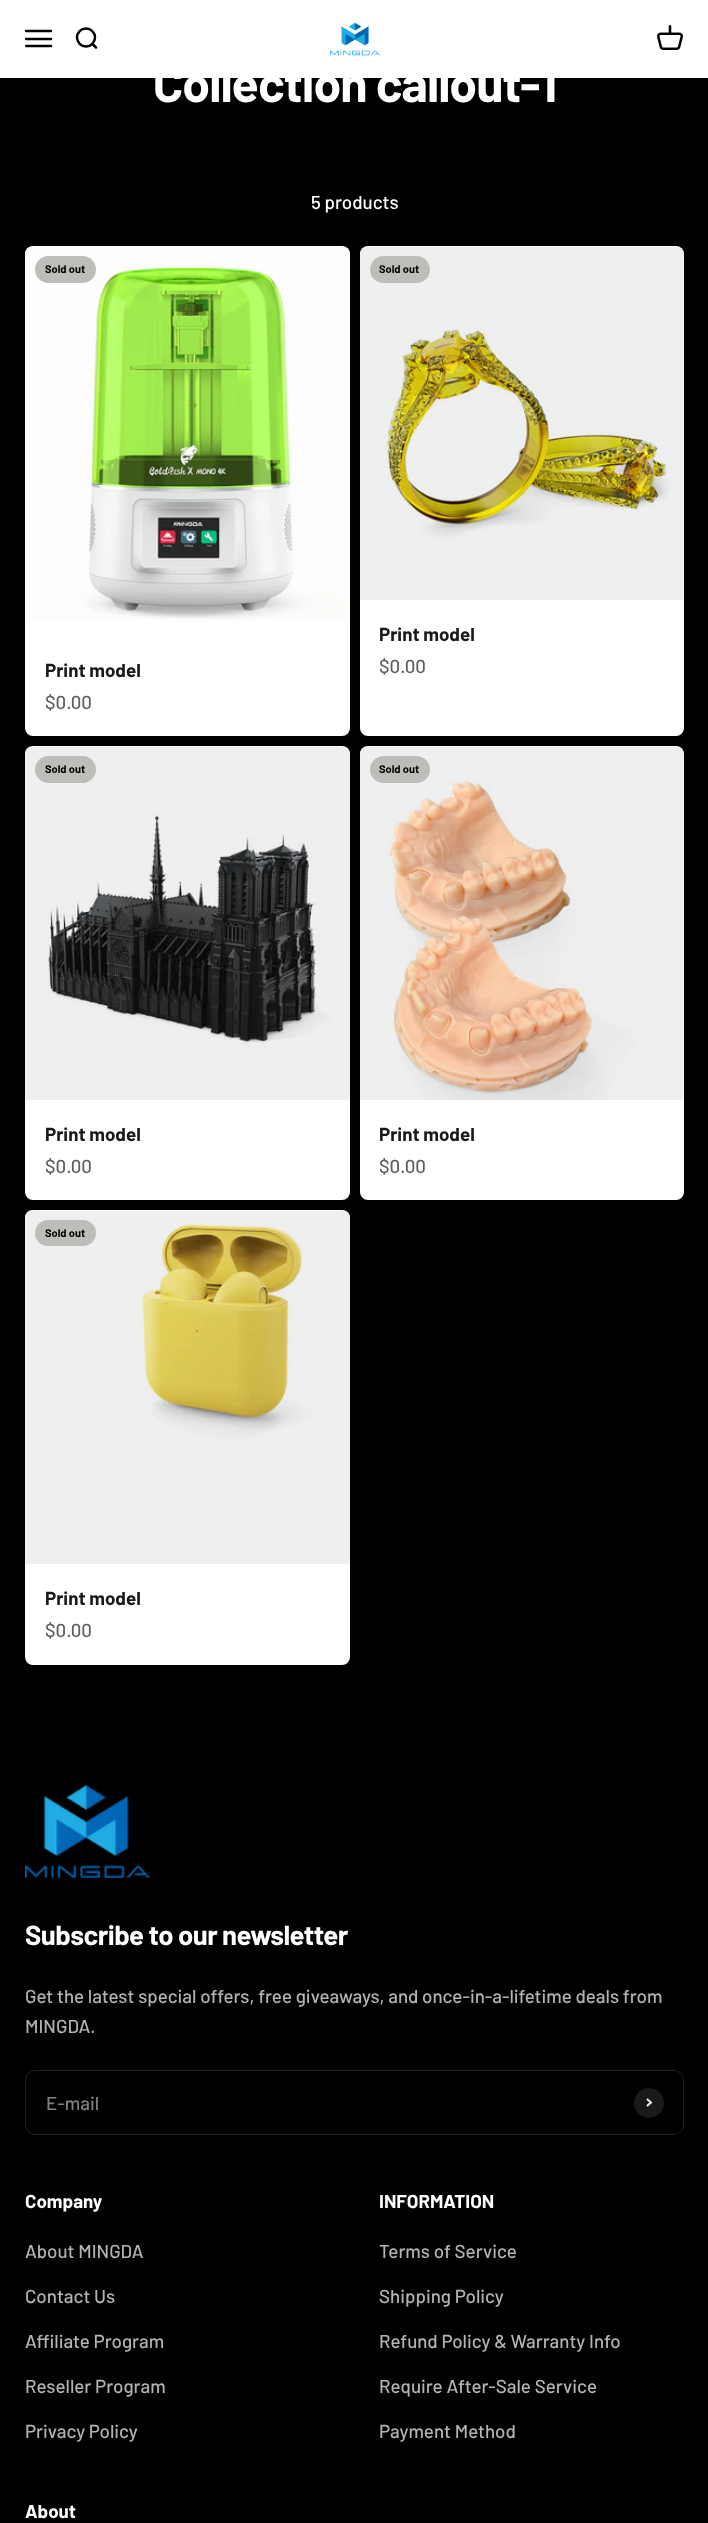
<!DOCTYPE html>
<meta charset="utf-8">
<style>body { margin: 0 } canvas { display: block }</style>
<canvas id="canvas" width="708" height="2523"></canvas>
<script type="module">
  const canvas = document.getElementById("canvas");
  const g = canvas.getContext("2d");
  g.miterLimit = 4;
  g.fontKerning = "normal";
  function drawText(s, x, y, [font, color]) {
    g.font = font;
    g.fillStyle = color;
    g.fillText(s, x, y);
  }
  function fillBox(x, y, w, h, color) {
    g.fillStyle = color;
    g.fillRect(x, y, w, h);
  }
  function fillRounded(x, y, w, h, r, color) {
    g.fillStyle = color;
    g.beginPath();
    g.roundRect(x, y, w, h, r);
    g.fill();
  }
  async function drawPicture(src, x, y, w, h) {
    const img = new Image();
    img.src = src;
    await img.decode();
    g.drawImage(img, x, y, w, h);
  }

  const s1 = ["bold 50px Barlow", "#FFFFFF"];
  const s2 = ["500 18.75px Barlow", "#FFFFFF"];
  const s3 = ["bold 11px Barlow", "#000000"];
  const s4 = ["bold 18.75px Barlow", "#1A1A1A"];
  const s5 = ["500 18.75px Barlow", "#5F5F5F"];
  const s6 = ["bold 27.5px Barlow", "#FFFFFF"];
  const s7 = ["500 18.75px Barlow", "#B3B3B3"];
  const s8 = ["500 18.75px Barlow", "#808080"];
  const s9 = ["bold 18.75px Barlow", "#FFFFFF"];

  fillBox(0, 0, 708, 2523, "#000000");
  fillBox(0, 0, 708, 78, "#FFFFFF");
  g.save();
  g.beginPath();
  g.rect(25, 25, 28, 28);
  g.clip();
  g.beginPath();
  g.moveTo(26, 31);
  g.lineTo(51, 31);
  g.moveTo(26, 39);
  g.lineTo(51, 39);
  g.moveTo(26, 46);
  g.lineTo(51, 46);
  g.strokeStyle = "#000000";
  g.lineWidth = 2.5;
  g.lineCap = "round";
  g.stroke();
  g.restore();
  g.beginPath();
  g.arc(86, 37.5, 9, 0, Math.PI * 2);
  g.strokeStyle = "#000000";
  g.lineWidth = 2.5;
  g.stroke();
  g.beginPath();
  g.moveTo(92.5, 44);
  g.lineTo(96, 47.5);
  g.lineCap = "round";
  g.lineJoin = "round";
  g.stroke();
  await drawPicture("pic1.png", 330, 22, 50, 34);
  await drawPicture("pic2.png", 657, 25, 26, 25);
  g.letterSpacing = "-1px";
  drawText("Collection callout-1", 153, 102, s1);
  g.letterSpacing = "0px";
  drawText("5 products", 311, 209, s2);
  fillRounded(25, 246, 325, 490, 8, "#FFFFFF");
  await drawPicture("pic3.png", 25, 246, 325, 375);
  fillRounded(35, 256, 61, 27, 13.5, "#BEBDB9");
  drawText("Sold out", 45, 273, s3);
  drawText("Print model", 45, 677, s4);
  drawText("$0.00", 45, 709, s5);
  fillRounded(360, 246, 324, 490, 8, "#FFFFFF");
  await drawPicture("pic4.png", 360, 246, 324, 354);
  fillRounded(370, 256, 60, 27, 13.5, "#BEBDB9");
  drawText("Sold out", 379, 273, s3);
  drawText("Print model", 379, 641, s4);
  drawText("$0.00", 379, 673, s5);
  fillRounded(25, 746, 325, 454, 8, "#FFFFFF");
  await drawPicture("pic5.png", 25, 746, 325, 354);
  fillRounded(35, 756, 61, 27, 13.5, "#BEBDB9");
  drawText("Sold out", 45, 773, s3);
  drawText("Print model", 45, 1141, s4);
  drawText("$0.00", 45, 1173, s5);
  fillRounded(360, 746, 324, 454, 8, "#FFFFFF");
  await drawPicture("pic6.png", 360, 746, 324, 354);
  fillRounded(370, 756, 60, 27, 13.5, "#BEBDB9");
  drawText("Sold out", 379, 773, s3);
  drawText("Print model", 379, 1141, s4);
  drawText("$0.00", 379, 1173, s5);
  fillRounded(25, 1210, 325, 455, 8, "#FFFFFF");
  await drawPicture("pic7.png", 25, 1210, 325, 354);
  fillRounded(35, 1220, 61, 26, 13, "#BEBDB9");
  drawText("Sold out", 45, 1237, s3);
  drawText("Print model", 45, 1605, s4);
  drawText("$0.00", 45, 1637, s5);
  await drawPicture("pic8.png", 25, 1785, 125, 93);
  g.letterSpacing = "-0.55px";
  drawText("Subscribe to our newsletter", 25, 1945, s6);
  g.letterSpacing = "0px";
  drawText("Get the latest special offers, free giveaways, and once-in-a-lifetime deals from", 25, 2003, s7);
  drawText("MINGDA.", 25, 2033, s7);
  g.beginPath();
  g.roundRect(25.5, 2070.5, 658, 64, 9.5);
  g.strokeStyle = "#1F1F1F";
  g.lineWidth = 1;
  g.lineJoin = "miter";
  g.stroke();
  drawText("E-mail", 46, 2110, s8);
  g.fillStyle = "#1A1A1A";
  g.beginPath();
  g.arc(649, 2103, 15, 0, Math.PI * 2);
  g.fill();
  g.beginPath();
  g.moveTo(647, 2106);
  g.lineTo(651, 2102.5);
  g.lineTo(647, 2099);
  g.strokeStyle = "#FFFFFF";
  g.lineWidth = 1.9;
  g.lineCap = "butt";
  g.stroke();
  drawText("Company", 25, 2208, s9);
  drawText("About MINGDA", 25, 2258, s7);
  drawText("Contact Us", 25, 2303, s7);
  drawText("Affiliate Program", 25, 2348, s7);
  drawText("Reseller Program", 25, 2393, s7);
  drawText("Privacy Policy", 25, 2438, s7);
  drawText("INFORMATION", 379, 2208, s9);
  drawText("Terms of Service", 379, 2258, s7);
  drawText("Shipping Policy", 379, 2303, s7);
  drawText("Refund Policy & Warranty Info", 379, 2348, s7);
  drawText("Require After-Sale Service", 379, 2393, s7);
  drawText("Payment Method", 379, 2438, s7);
  drawText("About", 25, 2518, s9);
</script>
